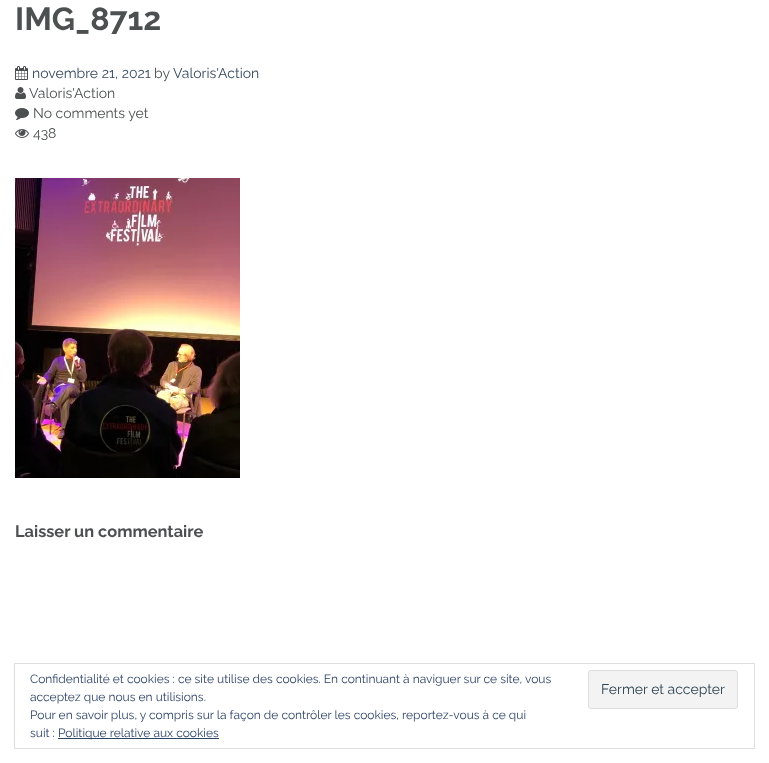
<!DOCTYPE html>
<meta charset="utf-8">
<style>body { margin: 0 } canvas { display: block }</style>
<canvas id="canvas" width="769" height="763"></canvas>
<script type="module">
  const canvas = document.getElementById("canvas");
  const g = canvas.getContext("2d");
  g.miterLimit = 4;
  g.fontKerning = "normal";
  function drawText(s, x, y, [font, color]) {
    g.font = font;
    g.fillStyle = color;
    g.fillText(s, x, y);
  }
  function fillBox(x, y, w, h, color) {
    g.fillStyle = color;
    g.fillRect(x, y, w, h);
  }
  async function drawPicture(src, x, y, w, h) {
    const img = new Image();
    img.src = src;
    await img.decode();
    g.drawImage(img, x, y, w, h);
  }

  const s1 = ["bold 32px Raleway", "#4D5051"];
  const s2 = ["14px Raleway", "#34495E"];
  const s3 = ["14px Raleway", "#4D5051"];
  const s4 = ["bold 16.4px Raleway", "#4D5051"];
  const s5 = ["12px Raleway", "#2E4467"];
  const s6 = ["14px Raleway", "#2E4453"];

  fillBox(0, 0, 769, 763, "#FFFFFF");
  drawText("IMG_8712", 15, 30, s1);
  await drawPicture("pic1.png", 15, 66, 13, 14);
  drawText("novembre 21, 2021", 32, 78, s2);
  drawText("by", 154, 78, s3);
  drawText("Valoris'Action", 173, 78, s2);
  await drawPicture("pic2.png", 15, 87, 11, 12);
  drawText("Valoris'Action", 29, 98, s3);
  await drawPicture("pic3.png", 15, 108, 14, 12);
  drawText("No comments yet", 33, 118, s3);
  await drawPicture("pic4.png", 15, 129, 14, 9);
  drawText("438", 33, 138, s3);
  await drawPicture("pic5.png", 15, 178, 225, 300);
  drawText("Laisser un commentaire", 15, 537, s4);
  g.strokeStyle = "#DEDEDE";
  g.strokeRect(14.5, 663.5, 740, 85);
  drawText("Confidentialité et cookies : ce site utilise des cookies. En continuant à naviguer sur ce site, vous", 30, 683, s5);
  drawText("acceptez que nous en utilisions.", 30, 701, s5);
  g.fillStyle = "#F3F3F3";
  g.beginPath();
  g.roundRect(588.5, 670.5, 149, 38, 2.5);
  g.fill();
  g.stroke();
  drawText("Fermer et accepter", 601, 694, s6);
  drawText("Pour en savoir plus, y compris sur la façon de contrôler les cookies, reportez-vous à ce qui", 30, 719, s5);
  drawText("suit :", 30, 737, s5);
  fillBox(58, 738, 161, 1, "#2E4467");
  drawText("Politique relative aux cookies", 58, 737, s5);
</script>
